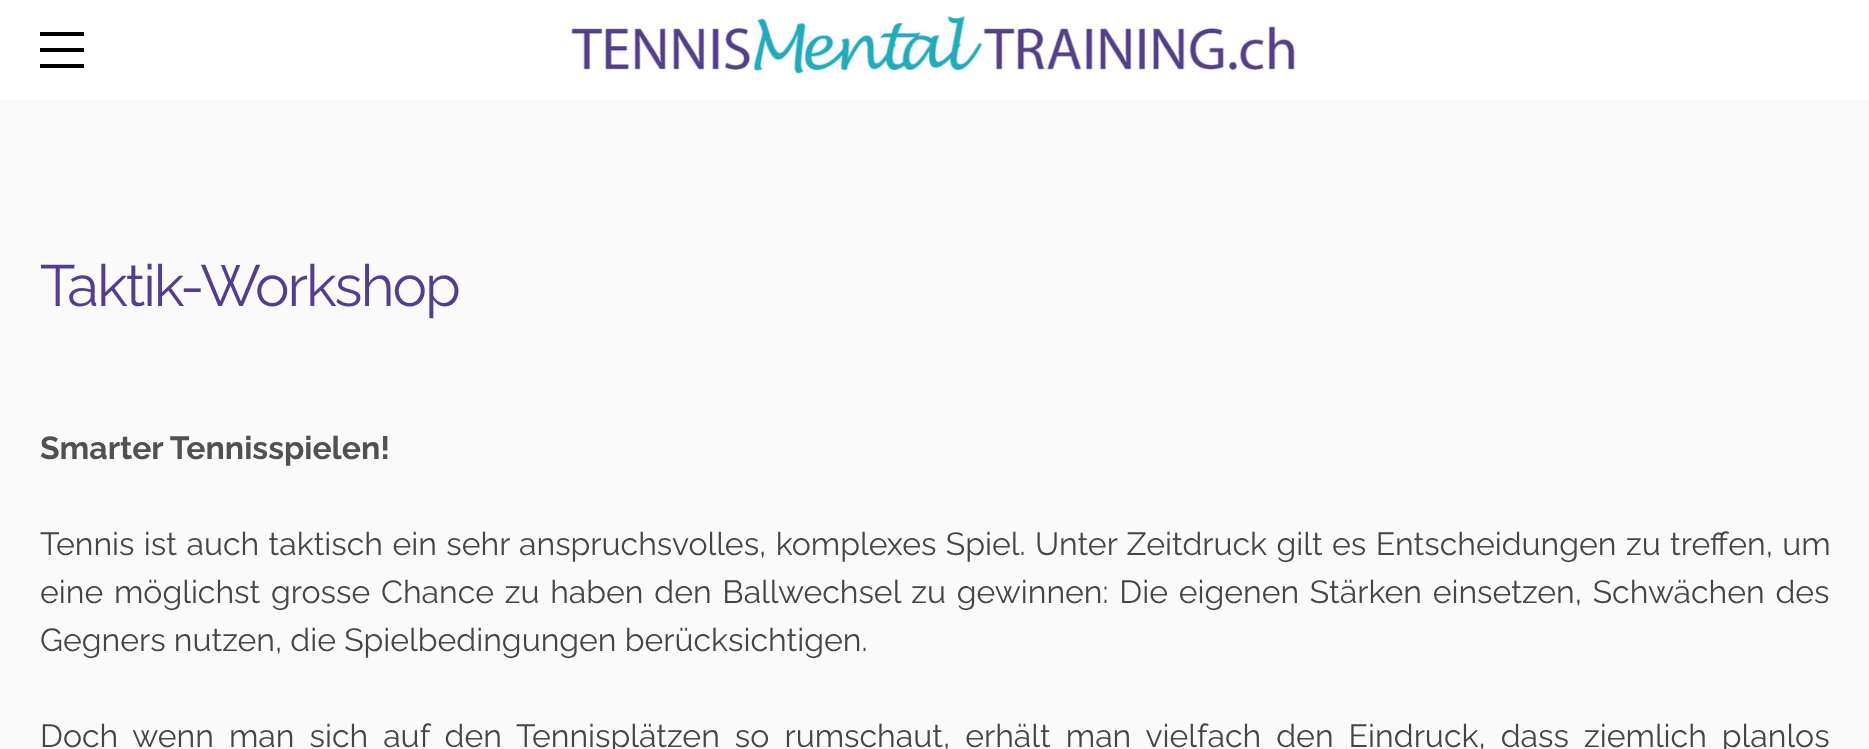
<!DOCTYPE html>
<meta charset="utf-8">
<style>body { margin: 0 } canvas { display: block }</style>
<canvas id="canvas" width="1869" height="749"></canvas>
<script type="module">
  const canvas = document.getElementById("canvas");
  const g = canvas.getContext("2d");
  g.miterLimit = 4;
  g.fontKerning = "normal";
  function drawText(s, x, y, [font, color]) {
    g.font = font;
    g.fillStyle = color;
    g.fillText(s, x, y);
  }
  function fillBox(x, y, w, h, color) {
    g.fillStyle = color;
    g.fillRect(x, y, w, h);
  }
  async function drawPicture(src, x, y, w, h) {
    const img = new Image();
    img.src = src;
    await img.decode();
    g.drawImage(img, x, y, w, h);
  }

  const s1 = ["100 58px Raleway", "#543D8D"];
  const s2 = ["100 32px 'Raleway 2'", "#515151"];
  const s3 = ["100 32px Raleway", "#454545"];

  fillBox(0, 0, 1869, 749, "#FFFFFF");
  fillBox(40, 48, 44, 4, "#000000");
  fillBox(40, 32, 44, 4, "#000000");
  fillBox(40, 64, 44, 4, "#000000");
  await drawPicture("pic1.png", 570, 15, 725, 59);
  fillBox(0, 100, 1869, 649, "#FAFAFA");
  g.letterSpacing = "-2px";
  drawText("Taktik-Workshop", 40, 306, s1);
  g.letterSpacing = "0px";
  drawText("Smarter Tennisspielen!", 40, 459, s2);
  g.wordSpacing = "1.25px";
  drawText("Tennis ist auch taktisch ein sehr anspruchsvolles, komplexes Spiel. Unter Zeitdruck gilt es Entscheidungen zu treffen, um", 40, 555, s3);
  g.wordSpacing = "2.6px";
  drawText("eine möglichst grosse Chance zu haben den Ballwechsel zu gewinnen: Die eigenen Stärken einsetzen, Schwächen des", 40, 603, s3);
  g.wordSpacing = "0px";
  drawText("Gegners nutzen, die Spielbedingungen berücksichtigen.", 40, 651, s3);
  g.wordSpacing = "6.9px";
  drawText("Doch wenn man sich auf den Tennisplätzen so rumschaut, erhält man vielfach den Eindruck, dass ziemlich planlos", 40, 747, s3);
</script>
